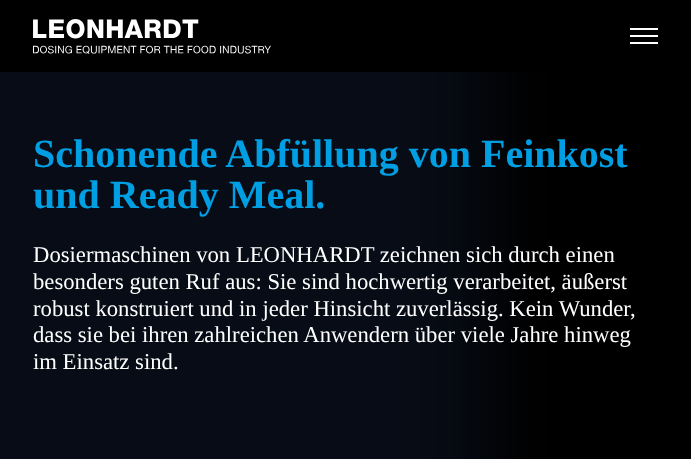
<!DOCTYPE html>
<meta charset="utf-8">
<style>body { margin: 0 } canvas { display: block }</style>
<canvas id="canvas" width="691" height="459"></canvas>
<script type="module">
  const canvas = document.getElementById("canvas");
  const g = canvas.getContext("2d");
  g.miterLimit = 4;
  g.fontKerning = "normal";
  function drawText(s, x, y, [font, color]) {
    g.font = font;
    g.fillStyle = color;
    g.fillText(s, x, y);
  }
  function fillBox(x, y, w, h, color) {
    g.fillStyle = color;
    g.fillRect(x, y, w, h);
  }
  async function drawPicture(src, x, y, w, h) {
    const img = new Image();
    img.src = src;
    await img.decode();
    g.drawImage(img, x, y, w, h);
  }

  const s1 = ["bold 40px Liberation Serif", "#009FE3"];
  const s2 = ["22.7px Liberation Serif", "#FFFFFF"];

  fillBox(0, 0, 691, 459, "#000000");
  await drawPicture("pic1.png", 33, 19, 238, 35);
  fillBox(630, 28, 28, 2, "#FFFFFF");
  fillBox(630, 35, 28, 2, "#FFFFFF");
  fillBox(630, 42, 28, 2, "#FFFFFF");
  g.save();
  g.beginPath();
  g.rect(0, 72, 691, 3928);
  g.clip();
  g.fillStyle = "rgba(32, 50, 96, 0.23)";
  g.filter = "blur(40px)";
  g.beginPath();
  g.rect(-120, -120, 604, 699);
  g.fill();
  g.filter = "none";
  g.restore();
  drawText("Schonende Abfüllung von Feinkost", 33, 167, s1);
  drawText("und Ready Meal.", 33, 208, s1);
  drawText("Dosiermaschinen von LEONHARDT zeichnen sich durch einen", 33, 262, s2);
  drawText("besonders guten Ruf aus: Sie sind hochwertig verarbeitet, äußerst", 33, 289, s2);
  drawText("robust konstruiert und in jeder Hinsicht zuverlässig. Kein Wunder,", 33, 316, s2);
  drawText("dass sie bei ihren zahlreichen Anwendern über viele Jahre hinweg", 33, 342, s2);
  drawText("im Einsatz sind.", 33, 369, s2);
</script>
